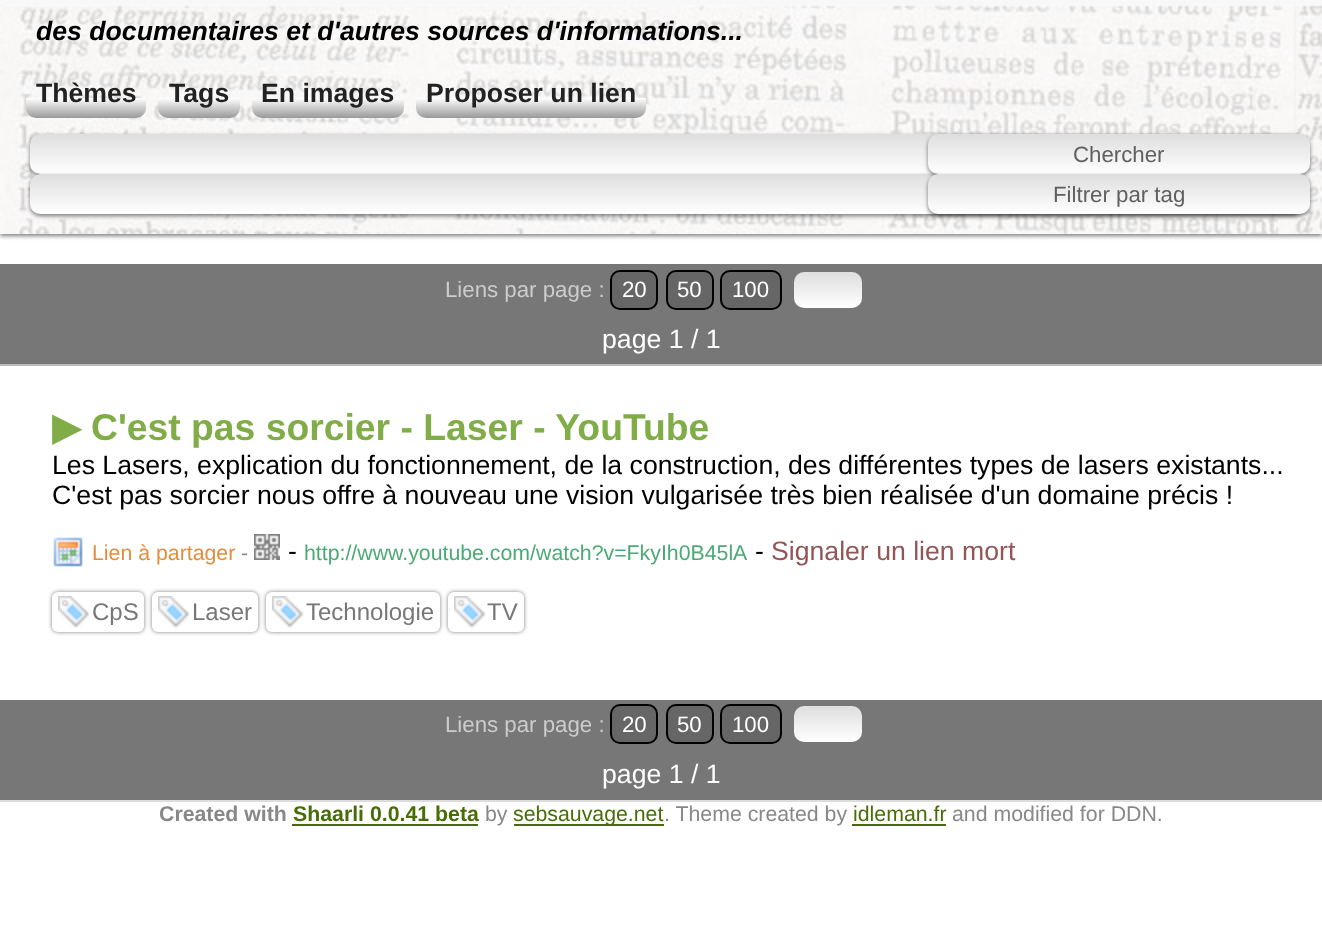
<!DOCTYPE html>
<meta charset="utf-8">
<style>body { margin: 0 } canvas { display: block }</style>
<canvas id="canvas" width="1322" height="950"></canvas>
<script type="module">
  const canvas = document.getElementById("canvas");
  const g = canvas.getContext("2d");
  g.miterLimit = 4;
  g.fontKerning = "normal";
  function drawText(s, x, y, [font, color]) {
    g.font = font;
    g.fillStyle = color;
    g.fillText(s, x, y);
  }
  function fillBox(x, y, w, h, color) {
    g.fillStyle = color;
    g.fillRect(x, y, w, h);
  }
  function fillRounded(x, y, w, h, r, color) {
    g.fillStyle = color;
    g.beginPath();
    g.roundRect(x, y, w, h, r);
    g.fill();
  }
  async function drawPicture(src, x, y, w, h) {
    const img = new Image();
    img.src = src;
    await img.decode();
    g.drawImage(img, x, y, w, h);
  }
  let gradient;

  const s1 = ["italic bold 26.65px Liberation Sans", "#000000"];
  const s2 = ["bold 26.65px Liberation Sans", "#222222"];
  const s3 = ["22.25px Liberation Sans", "#606060"];
  const s4 = ["22.25px Liberation Sans", "#CCCCCC"];
  const s5 = ["22.25px Liberation Sans", "#FFFFFF"];
  const s6 = ["26.65px Liberation Sans", "#FFFFFF"];
  const s7 = ["bold 37.3px DejaVu Sans", "#80AD48"];
  const s8 = ["bold 37.3px Liberation Sans", "#80AD48"];
  const s9 = ["26.65px Liberation Sans", "#000000"];
  const s10 = ["21.3px Liberation Sans", "#E28E3F"];
  const s11 = ["21.3px Liberation Sans", "#4BAA74"];
  const s12 = ["26.65px Liberation Sans", "#935555"];
  const s13 = ["21.3px Liberation Sans", "#888888"];
  const s14 = ["24px Liberation Sans", "#777777"];
  const s15 = ["bold 21.3px Liberation Sans", "#888888"];
  const s16 = ["bold 21.3px Liberation Sans", "#486D08"];
  const s17 = ["21.3px Liberation Sans", "#486D08"];

  fillBox(0, 0, 1322, 950, "#FFFFFF");
  g.fillStyle = "rgba(0, 0, 0, 0.5)";
  g.filter = "blur(2px)";
  g.beginPath();
  g.rect(0, 2, 1322, 234);
  g.fill();
  g.filter = "none";
  fillBox(0, 0, 1322, 5, "#F9F8F8");
  await drawPicture("pic1.png", 0, 5, 1322, 229);
  drawText("des documentaires et d'autres sources d'informations...", 36, 40, s1);
  gradient = g.createLinearGradient(86, 98, 86, 148);
  gradient.addColorStop(0, "#FFFFFF");
  gradient.addColorStop(1, "#000000");
  g.fillStyle = gradient;
  g.beginPath();
  g.roundRect(26, 98, 120, 20, [0, 0, 10, 10]);
  g.fill();
  drawText("Thèmes", 36, 102, s2);
  gradient = g.createLinearGradient(199, 98, 199, 148);
  gradient.addColorStop(0, "#FFFFFF");
  gradient.addColorStop(1, "#000000");
  g.fillStyle = gradient;
  g.beginPath();
  g.roundRect(158, 98, 82, 20, [0, 0, 10, 10]);
  g.fill();
  drawText("Tags", 169, 102, s2);
  gradient = g.createLinearGradient(328, 98, 328, 148);
  gradient.addColorStop(0, "#FFFFFF");
  gradient.addColorStop(1, "#000000");
  g.fillStyle = gradient;
  g.beginPath();
  g.roundRect(252, 98, 152, 20, [0, 0, 10, 10]);
  g.fill();
  drawText("En images", 261, 102, s2);
  gradient = g.createLinearGradient(531, 98, 531, 148);
  gradient.addColorStop(0, "#FFFFFF");
  gradient.addColorStop(1, "#000000");
  g.fillStyle = gradient;
  g.beginPath();
  g.roundRect(416, 98, 230, 20, [0, 0, 10, 10]);
  g.fill();
  drawText("Proposer un lien", 426, 102, s2);
  g.fillStyle = "rgba(0, 0, 0, 0.5)";
  g.filter = "blur(2px)";
  g.beginPath();
  g.roundRect(30, 136, 1272, 40, 10);
  g.fill();
  g.filter = "none";
  gradient = g.createLinearGradient(666, 134, 666, 174);
  gradient.addColorStop(0, "#DEDEDE");
  gradient.addColorStop(1, "#FFFFFF");
  g.fillStyle = gradient;
  g.beginPath();
  g.roundRect(30, 134, 1272, 40, 10);
  g.fill();
  g.fillStyle = "rgba(0, 0, 0, 0.5)";
  g.filter = "blur(2px)";
  g.beginPath();
  g.roundRect(30, 176, 1272, 40, 10);
  g.fill();
  g.filter = "none";
  gradient = g.createLinearGradient(666, 174, 666, 214);
  gradient.addColorStop(0, "#DEDEDE");
  gradient.addColorStop(1, "#FFFFFF");
  g.fillStyle = gradient;
  g.beginPath();
  g.roundRect(30, 174, 1272, 40, 10);
  g.fill();
  g.fillStyle = "rgba(0, 0, 0, 0.5)";
  g.filter = "blur(2px)";
  g.beginPath();
  g.roundRect(928, 136, 382, 40, 10);
  g.fill();
  g.filter = "none";
  gradient = g.createLinearGradient(1119, 134, 1119, 174);
  gradient.addColorStop(0, "#DEDEDE");
  gradient.addColorStop(1, "#FFFFFF");
  g.fillStyle = gradient;
  g.beginPath();
  g.roundRect(928, 134, 382, 40, 10);
  g.fill();
  drawText("Chercher", 1073, 162, s3);
  g.fillStyle = "rgba(0, 0, 0, 0.5)";
  g.filter = "blur(2px)";
  g.beginPath();
  g.roundRect(928, 176, 382, 40, 10);
  g.fill();
  g.filter = "none";
  gradient = g.createLinearGradient(1119, 174, 1119, 214);
  gradient.addColorStop(0, "#DEDEDE");
  gradient.addColorStop(1, "#FFFFFF");
  g.fillStyle = gradient;
  g.beginPath();
  g.roundRect(928, 174, 382, 40, 10);
  g.fill();
  drawText("Filtrer par tag", 1053, 202, s3);
  fillBox(0, 264, 1322, 100, "#777777");
  drawText("Liens par page :", 445, 297, s4);
  g.fillStyle = "#666666";
  g.beginPath();
  g.roundRect(611, 271, 46, 38, 9);
  g.fill();
  g.strokeStyle = "#000000";
  g.lineWidth = 2;
  g.stroke();
  drawText("20", 622, 297, s5);
  g.fillStyle = "#666666";
  g.beginPath();
  g.roundRect(667, 271, 46, 38, 9);
  g.fill();
  g.stroke();
  drawText("50", 677, 297, s5);
  g.fillStyle = "#666666";
  g.beginPath();
  g.roundRect(721, 271, 60, 38, 9);
  g.fill();
  g.stroke();
  drawText("100", 732, 297, s5);
  gradient = g.createLinearGradient(828, 272, 828, 308);
  gradient.addColorStop(0, "#DEDEDE");
  gradient.addColorStop(1, "#FFFFFF");
  g.fillStyle = gradient;
  g.beginPath();
  g.roundRect(794, 272, 68, 36, 10);
  g.fill();
  drawText("page 1 / 1", 602, 348, s6);
  fillBox(0, 364, 1322, 2, "#BBBBBB");
  drawText("▶", 52, 440, s7);
  drawText("C'est pas sorcier - Laser - YouTube", 91, 440, s8);
  drawText("Les Lasers, explication du fonctionnement, de la construction, des différentes types de lasers existants...", 52, 474, s9);
  drawText("C'est pas sorcier nous offre à nouveau une vision vulgarisée très bien réalisée d'un domaine précis !", 52, 504, s9);
  await drawPicture("pic2.png", 53, 537, 30, 30);
  drawText("Lien à partager", 92, 560, s10);
  await drawPicture("pic3.png", 254, 534, 26, 26);
  drawText("-", 288, 560, s9);
  drawText("http://www.youtube.com/watch?v=FkyIh0B45lA", 304, 560, s11);
  drawText("-", 755, 560, s9);
  drawText("Signaler un lien mort", 771, 560, s12);
  drawText("-", 241, 560, s13);
  g.fillStyle = "rgba(0, 0, 0, 0.5)";
  g.filter = "blur(2px)";
  g.beginPath();
  g.roundRect(52, 592, 92, 40, 6);
  g.fill();
  g.filter = "none";
  fillRounded(52, 592, 92, 40, 6, "#FFFFFF");
  await drawPicture("pic4.png", 58, 596, 32, 32);
  drawText("CpS", 92, 620, s14);
  g.fillStyle = "rgba(0, 0, 0, 0.5)";
  g.filter = "blur(2px)";
  g.beginPath();
  g.roundRect(152, 592, 106, 40, 6);
  g.fill();
  g.filter = "none";
  fillRounded(152, 592, 106, 40, 6, "#FFFFFF");
  await drawPicture("pic4.png", 158, 596, 32, 32);
  drawText("Laser", 192, 620, s14);
  g.fillStyle = "rgba(0, 0, 0, 0.5)";
  g.filter = "blur(2px)";
  g.beginPath();
  g.roundRect(266, 592, 174, 40, 6);
  g.fill();
  g.filter = "none";
  fillRounded(266, 592, 174, 40, 6, "#FFFFFF");
  await drawPicture("pic4.png", 272, 596, 32, 32);
  drawText("Technologie", 306, 620, s14);
  g.fillStyle = "rgba(0, 0, 0, 0.5)";
  g.filter = "blur(2px)";
  g.beginPath();
  g.roundRect(448, 592, 76, 40, 6);
  g.fill();
  g.filter = "none";
  fillRounded(448, 592, 76, 40, 6, "#FFFFFF");
  await drawPicture("pic4.png", 454, 596, 32, 32);
  drawText("TV", 487, 620, s14);
  fillBox(0, 700, 1322, 100, "#777777");
  drawText("Liens par page :", 445, 732, s4);
  g.fillStyle = "#666666";
  g.beginPath();
  g.roundRect(611, 705, 46, 38, 9);
  g.fill();
  g.stroke();
  drawText("20", 622, 732, s5);
  g.fillStyle = "#666666";
  g.beginPath();
  g.roundRect(667, 705, 46, 38, 9);
  g.fill();
  g.stroke();
  drawText("50", 677, 732, s5);
  g.fillStyle = "#666666";
  g.beginPath();
  g.roundRect(721, 705, 60, 38, 9);
  g.fill();
  g.stroke();
  drawText("100", 732, 732, s5);
  gradient = g.createLinearGradient(828, 706, 828, 742);
  gradient.addColorStop(0, "#DEDEDE");
  gradient.addColorStop(1, "#FFFFFF");
  g.fillStyle = gradient;
  g.beginPath();
  g.roundRect(794, 706, 68, 36, 10);
  g.fill();
  drawText("page 1 / 1", 602, 783, s6);
  fillBox(0, 800, 1322, 2, "#DDDDDD");
  drawText("Created with", 159, 821, s15);
  drawText("Shaarli 0.0.41 beta", 293, 821, s16);
  fillBox(292, 824, 186, 2, "#486D08");
  drawText("by", 485, 821, s13);
  fillBox(514, 824, 150, 2, "#486D08");
  drawText("sebsauvage.net", 513, 821, s17);
  drawText(". Theme created by", 664, 821, s13);
  drawText("idleman.fr", 853, 821, s17);
  fillBox(852, 824, 94, 2, "#486D08");
  drawText("and modified for DDN.", 952, 821, s13);
</script>
